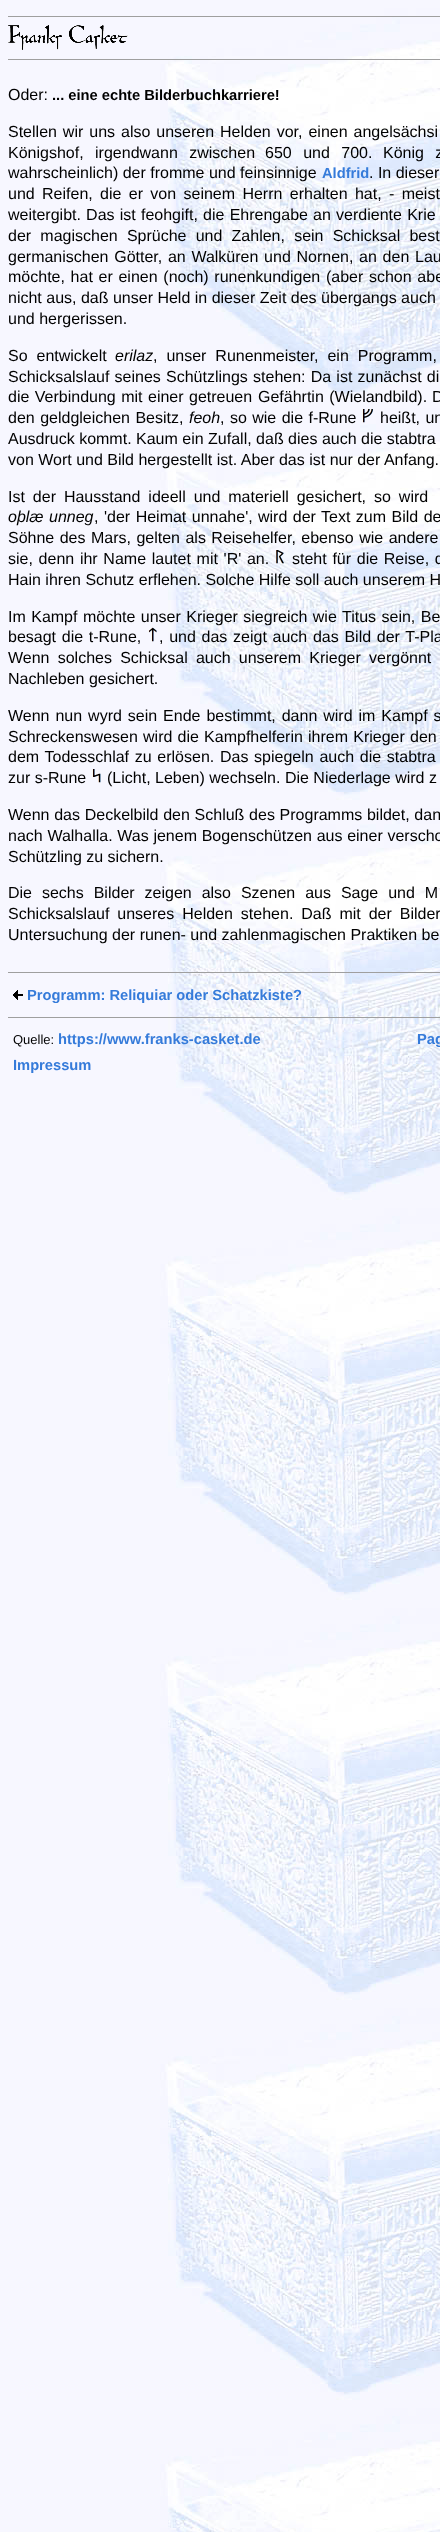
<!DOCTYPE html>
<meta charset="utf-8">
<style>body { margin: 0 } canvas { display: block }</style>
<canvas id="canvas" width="440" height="2532"></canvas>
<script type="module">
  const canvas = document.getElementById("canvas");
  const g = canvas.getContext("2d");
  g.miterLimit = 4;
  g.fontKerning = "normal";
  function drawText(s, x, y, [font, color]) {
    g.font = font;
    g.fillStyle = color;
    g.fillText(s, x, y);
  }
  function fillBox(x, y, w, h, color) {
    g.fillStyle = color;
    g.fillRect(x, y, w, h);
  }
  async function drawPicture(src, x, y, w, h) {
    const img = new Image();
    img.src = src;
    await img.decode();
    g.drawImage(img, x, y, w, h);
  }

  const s1 = ["16px Liberation Sans", "#000000"];
  const s2 = ["bold 14.7px Liberation Sans", "#000000"];
  const s3 = ["bold 14.7px Liberation Sans", "#357BDA"];
  const s4 = ["italic 16px Liberation Sans", "#000000"];
  const s5 = ["13px Liberation Sans", "#000000"];

  fillBox(0, 0, 440, 2532, "#FFFFFF");
  await drawPicture("pic1.png", 0, 0, 440, 2532);
  fillBox(8, 16, 432, 1, "#9F9F9F");
  await drawPicture("pic2.png", 8, 25, 120, 25);
  fillBox(8, 59, 432, 1, "#9F9F9F");
  drawText("Oder:", 8, 100, s1);
  drawText("... eine echte Bilderbuchkarriere!", 52, 100, s2);
  g.wordSpacing = "1.5px";
  drawText("Stellen wir uns also unseren Helden vor, einen angelsächsi", 8, 137, s1);
  g.wordSpacing = "7px";
  drawText("Königshof, irgendwann zwischen", 8, 158, s1);
  drawText("650 und 700.", 265, 158, s1);
  drawText("König z", 383, 158, s1);
  g.wordSpacing = "0px";
  drawText("wahrscheinlich) der fromme und feinsinnige", 8, 178, s1);
  drawText("Aldfrid", 322, 178, s3);
  drawText(". In dieser", 369, 178, s1);
  g.wordSpacing = "2.9px";
  drawText("und Reifen, die er von seinem Herrn erhalten hat, - meist", 8, 199, s1);
  g.wordSpacing = "0.75px";
  drawText("weitergibt. Das ist feohgift, die Ehrengabe an verdiente Krie", 8, 220, s1);
  g.wordSpacing = "4.75px";
  drawText("der magischen Sprüche und Zahlen, sein Schicksal best", 8, 241, s1);
  g.wordSpacing = "1.25px";
  drawText("germanischen Götter, an Walküren und Nornen, an den Lau", 8, 262, s1);
  drawText("möchte, hat er einen (noch) runenkundigen (aber schon abe", 8, 282, s1);
  g.wordSpacing = "0px";
  drawText("nicht aus, daß unser Held in dieser Zeit des übergangs auch", 8, 303, s1);
  drawText("und hergerissen.", 8, 324, s1);
  g.wordSpacing = "4.5px";
  drawText("So entwickelt", 8, 361, s1);
  g.wordSpacing = "0px";
  drawText("erilaz", 115, 361, s4);
  g.wordSpacing = "4.5px";
  drawText(", unser Runenmeister, ein Programm,", 153, 361, s1);
  g.wordSpacing = "0.75px";
  drawText("Schicksalslauf seines Schützlings stehen: Da ist zunächst di", 8, 382, s1);
  g.wordSpacing = "1px";
  drawText("die Verbindung mit einer getreuen", 8, 402, s1);
  drawText("Gefährtin (Wielandbild).", 258, 402, s1);
  drawText("D", 432, 402, s1);
  drawText("den geldgleichen Besitz,", 8, 423, s1);
  g.wordSpacing = "0px";
  drawText("feoh", 189, 423, s4);
  g.wordSpacing = "1px";
  drawText(", so wie die f-Rune", 220, 423, s1);
  await drawPicture("pic3.png", 362, 409, 11, 14);
  drawText("heißt, un", 380, 423, s1);
  g.wordSpacing = "0px";
  drawText("Ausdruck kommt. Kaum ein Zufall, daß dies auch die stabtra", 8, 444, s1);
  drawText("von Wort und Bild hergestellt ist. Aber das ist nur der Anfang.", 8, 465, s1);
  g.wordSpacing = "3.5px";
  drawText("Ist der Hausstand ideell und materiell gesichert, so wird", 8, 502, s1);
  g.wordSpacing = "1px";
  drawText("oþlæ unneg", 8, 522, s4);
  g.wordSpacing = "0px";
  drawText(",", 94, 522, s1);
  g.wordSpacing = "1px";
  drawText("'der Heimat unnahe',", 104, 522, s1);
  drawText("wird der Text zum Bild de", 258, 522, s1);
  drawText("Söhne des Mars, gelten als Reisehelfer, ebenso wie andere", 8, 543, s1);
  g.wordSpacing = "1.25px";
  drawText("sie, denn ihr Name lautet mit 'R' an.", 8, 564, s1);
  await drawPicture("pic4.png", 276, 550, 8, 14);
  drawText("steht für die Reise, d", 292, 564, s1);
  g.wordSpacing = "0px";
  drawText("Hain ihren Schutz erflehen. Solche Hilfe soll auch unserem H", 8, 585, s1);
  g.wordSpacing = "1px";
  drawText("Im Kampf möchte unser Krieger siegreich wie Titus sein, Be", 8, 622, s1);
  g.wordSpacing = "1.25px";
  drawText("besagt die t-Rune,", 8, 642, s1);
  await drawPicture("pic5.png", 148, 627, 9, 15);
  drawText(", und das zeigt auch das Bild der T-Pla", 159, 642, s1);
  g.wordSpacing = "3.75px";
  drawText("Wenn solches Schicksal auch unserem Krieger vergönnt", 8, 663, s1);
  g.wordSpacing = "0px";
  drawText("Nachleben gesichert.", 8, 684, s1);
  g.wordSpacing = "1.5px";
  drawText("Wenn nun wyrd sein Ende bestimmt, dann wird im Kampf s", 8, 721, s1);
  g.wordSpacing = "0.75px";
  drawText("Schreckenswesen wird die Kampfhelferin ihrem Krieger den", 8, 742, s1);
  g.wordSpacing = "1.25px";
  drawText("dem Todesschlaf zu erlösen. Das spiegeln auch die stabtra", 8, 762, s1);
  g.wordSpacing = "0px";
  drawText("zur s-Rune", 8, 783, s1);
  await drawPicture("pic6.png", 92, 769, 9, 14);
  drawText("(Licht, Leben) wechseln. Die Niederlage wird z", 107, 783, s1);
  g.wordSpacing = "0.25px";
  drawText("Wenn das Deckelbild den Schluß des Programms bildet, dan", 8, 820, s1);
  drawText("nach Walhalla. Was jenem Bogenschützen aus einer verscho", 8, 841, s1);
  g.wordSpacing = "0px";
  drawText("Schützling zu sichern.", 8, 862, s1);
  g.wordSpacing = "5.5px";
  drawText("Die sechs Bilder zeigen also Szenen aus Sage und M", 8, 898, s1);
  g.wordSpacing = "3.5px";
  drawText("Schicksalslauf unseres Helden stehen. Daß mit der Bilder", 8, 919, s1);
  g.wordSpacing = "0px";
  drawText("Untersuchung der runen- und zahlenmagischen Praktiken be", 8, 940, s1);
  fillBox(8, 972, 432, 1, "#9F9F9F");
  await drawPicture("pic7.png", 13, 990, 10, 10);
  drawText("Programm: Reliquiar oder Schatzkiste?", 27, 1000, s3);
  fillBox(8, 1017, 432, 1, "#9F9F9F");
  drawText("Quelle:", 13, 1044, s5);
  drawText("https://www.franks-casket.de", 58, 1044, s3);
  drawText("Pag", 417, 1044, s3);
  drawText("Impressum", 13, 1070, s3);
</script>
